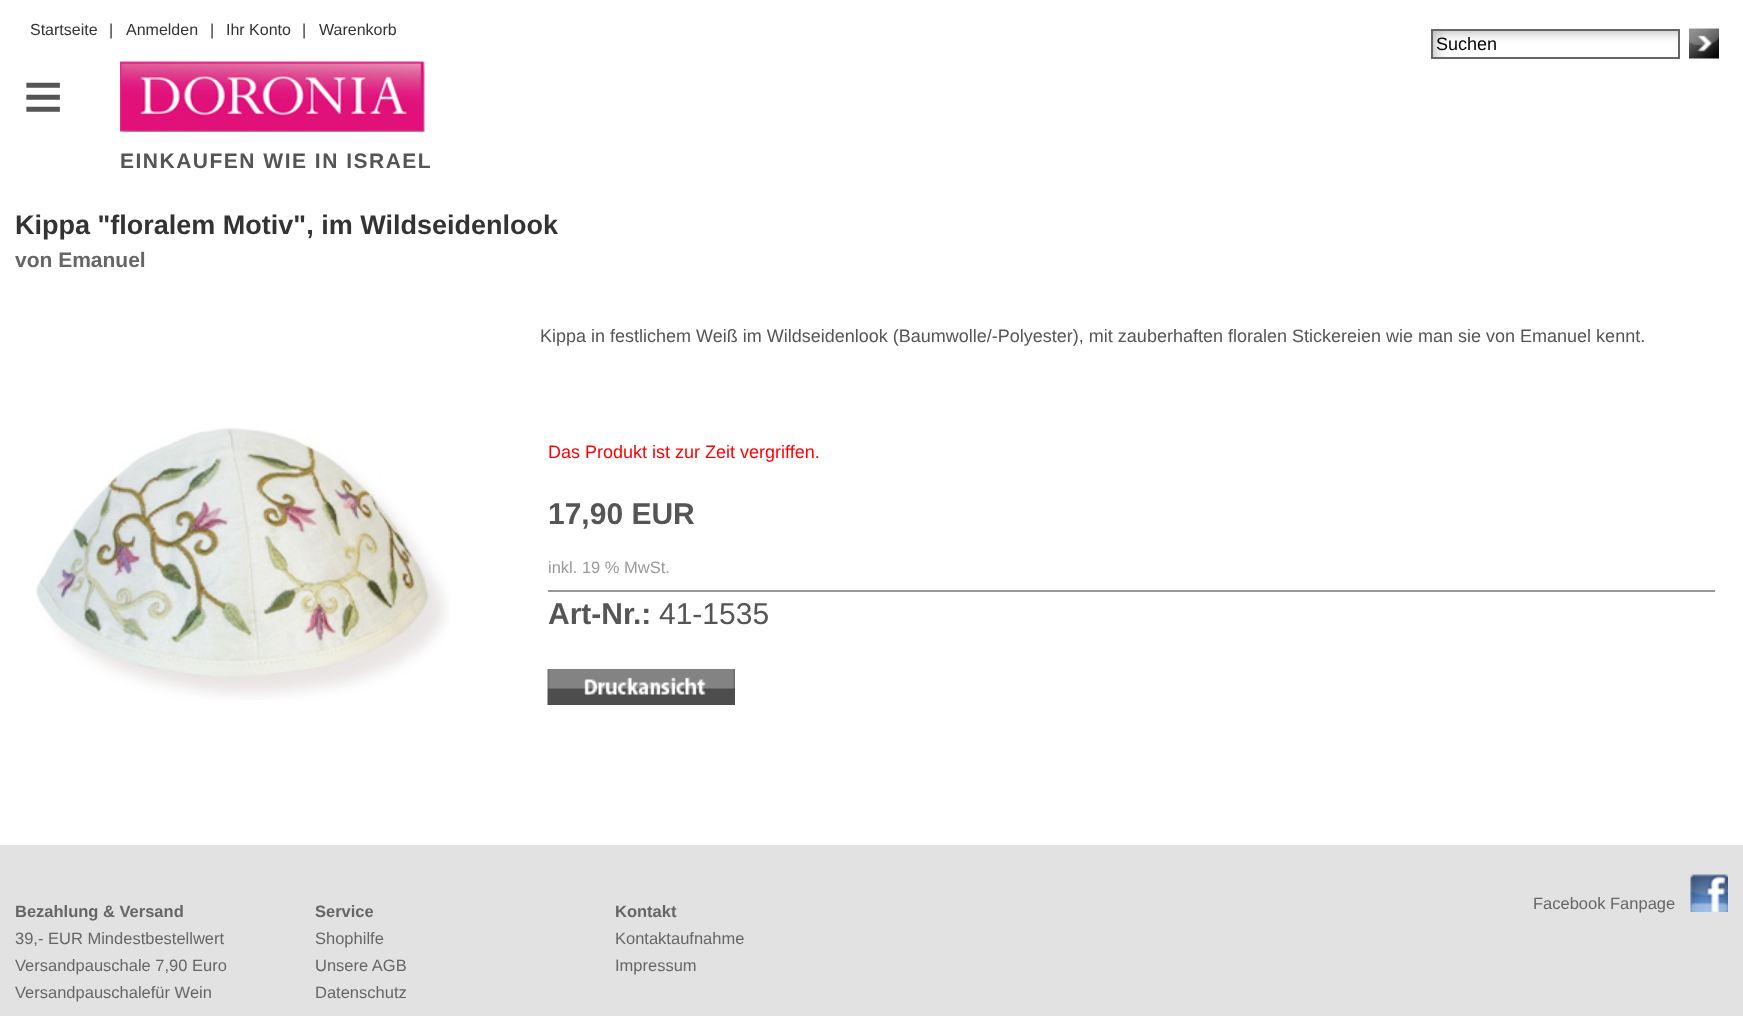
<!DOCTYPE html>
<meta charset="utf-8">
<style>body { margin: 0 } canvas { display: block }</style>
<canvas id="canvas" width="1743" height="1016"></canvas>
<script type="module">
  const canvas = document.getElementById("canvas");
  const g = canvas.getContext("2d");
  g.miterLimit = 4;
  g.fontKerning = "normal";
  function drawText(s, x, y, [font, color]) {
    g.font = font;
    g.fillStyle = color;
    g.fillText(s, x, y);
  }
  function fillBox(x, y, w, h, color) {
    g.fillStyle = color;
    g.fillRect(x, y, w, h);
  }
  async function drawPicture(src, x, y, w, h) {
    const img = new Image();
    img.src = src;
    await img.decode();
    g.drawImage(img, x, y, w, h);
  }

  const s1 = ["16px Liberation Sans", "#333333"];
  const s2 = ["18px Liberation Sans", "#000000"];
  const s3 = ["bold 21px Liberation Sans", "#555555"];
  const s4 = ["69px Liberation Sans", "#555555"];
  const s5 = ["bold 27px Liberation Sans", "#333333"];
  const s6 = ["bold 21px Liberation Sans", "#666666"];
  const s7 = ["18px Liberation Sans", "#555555"];
  const s8 = ["18px Liberation Sans", "#FF0000"];
  const s9 = ["bold 30px Liberation Sans", "#555555"];
  const s10 = ["16.5px Liberation Sans", "#999999"];
  const s11 = ["30px Liberation Sans", "#555555"];
  const s12 = ["bold 16.5px Liberation Sans", "#666666"];
  const s13 = ["16.5px Liberation Sans", "#666666"];

  fillBox(0, 0, 1743, 1016, "#FFFFFF");
  drawText("Startseite", 30, 35, s1);
  drawText("|", 109, 35, s1);
  drawText("Anmelden", 126, 35, s1);
  drawText("|", 210, 35, s1);
  drawText("Ihr Konto", 226, 35, s1);
  drawText("|", 302, 35, s1);
  drawText("Warenkorb", 319, 35, s1);
  await drawPicture("pic1.png", 1433, 31, 245, 26);
  g.strokeStyle = "#666666";
  g.lineWidth = 2;
  g.strokeRect(1432, 30, 247, 28);
  drawText("Suchen", 1436, 50, s2);
  await drawPicture("pic2.png", 1689, 28, 30, 31);
  await drawPicture("pic3.png", 120, 61, 305, 71);
  g.letterSpacing = "1.5px";
  drawText("EINKAUFEN WIE IN ISRAEL", 120, 168, s3);
  g.letterSpacing = "28px";
  drawText("≡", 23, 120, s4);
  g.letterSpacing = "0px";
  drawText("Kippa \"floralem Motiv\", im Wildseidenlook", 15, 234, s5);
  drawText("von Emanuel", 15, 267, s6);
  await drawPicture("pic4.png", 36, 427, 414, 273);
  drawText("Kippa in festlichem Weiß im Wildseidenlook (Baumwolle/-Polyester), mit zauberhaften floralen Stickereien wie man sie von Emanuel kennt.", 540, 342, s7);
  drawText("Das Produkt ist zur Zeit vergriffen.", 548, 458, s8);
  drawText("17,90 EUR", 548, 524, s9);
  drawText("inkl. 19 % MwSt.", 548, 573, s10);
  fillBox(548, 590, 1167, 2, "#999999");
  drawText("Art-Nr.:", 548, 624, s9);
  drawText("41-1535", 659, 624, s11);
  await drawPicture("pic5.png", 547, 669, 188, 36);
  fillBox(0, 845, 1743, 171, "#E2E2E2");
  drawText("Bezahlung & Versand", 15, 917, s12);
  drawText("39,- EUR Mindestbestellwert", 15, 944, s13);
  drawText("Versandpauschale 7,90 Euro", 15, 971, s13);
  drawText("Versandpauschalefür Wein", 15, 998, s13);
  drawText("Service", 315, 917, s12);
  drawText("Shophilfe", 315, 944, s13);
  drawText("Unsere AGB", 315, 971, s13);
  drawText("Datenschutz", 315, 998, s13);
  drawText("Kontakt", 615, 917, s12);
  drawText("Kontaktaufnahme", 615, 944, s13);
  drawText("Impressum", 615, 971, s13);
  drawText("Facebook Fanpage", 1533, 909, s13);
  await drawPicture("pic6.png", 1690, 874, 38, 38);
</script>
